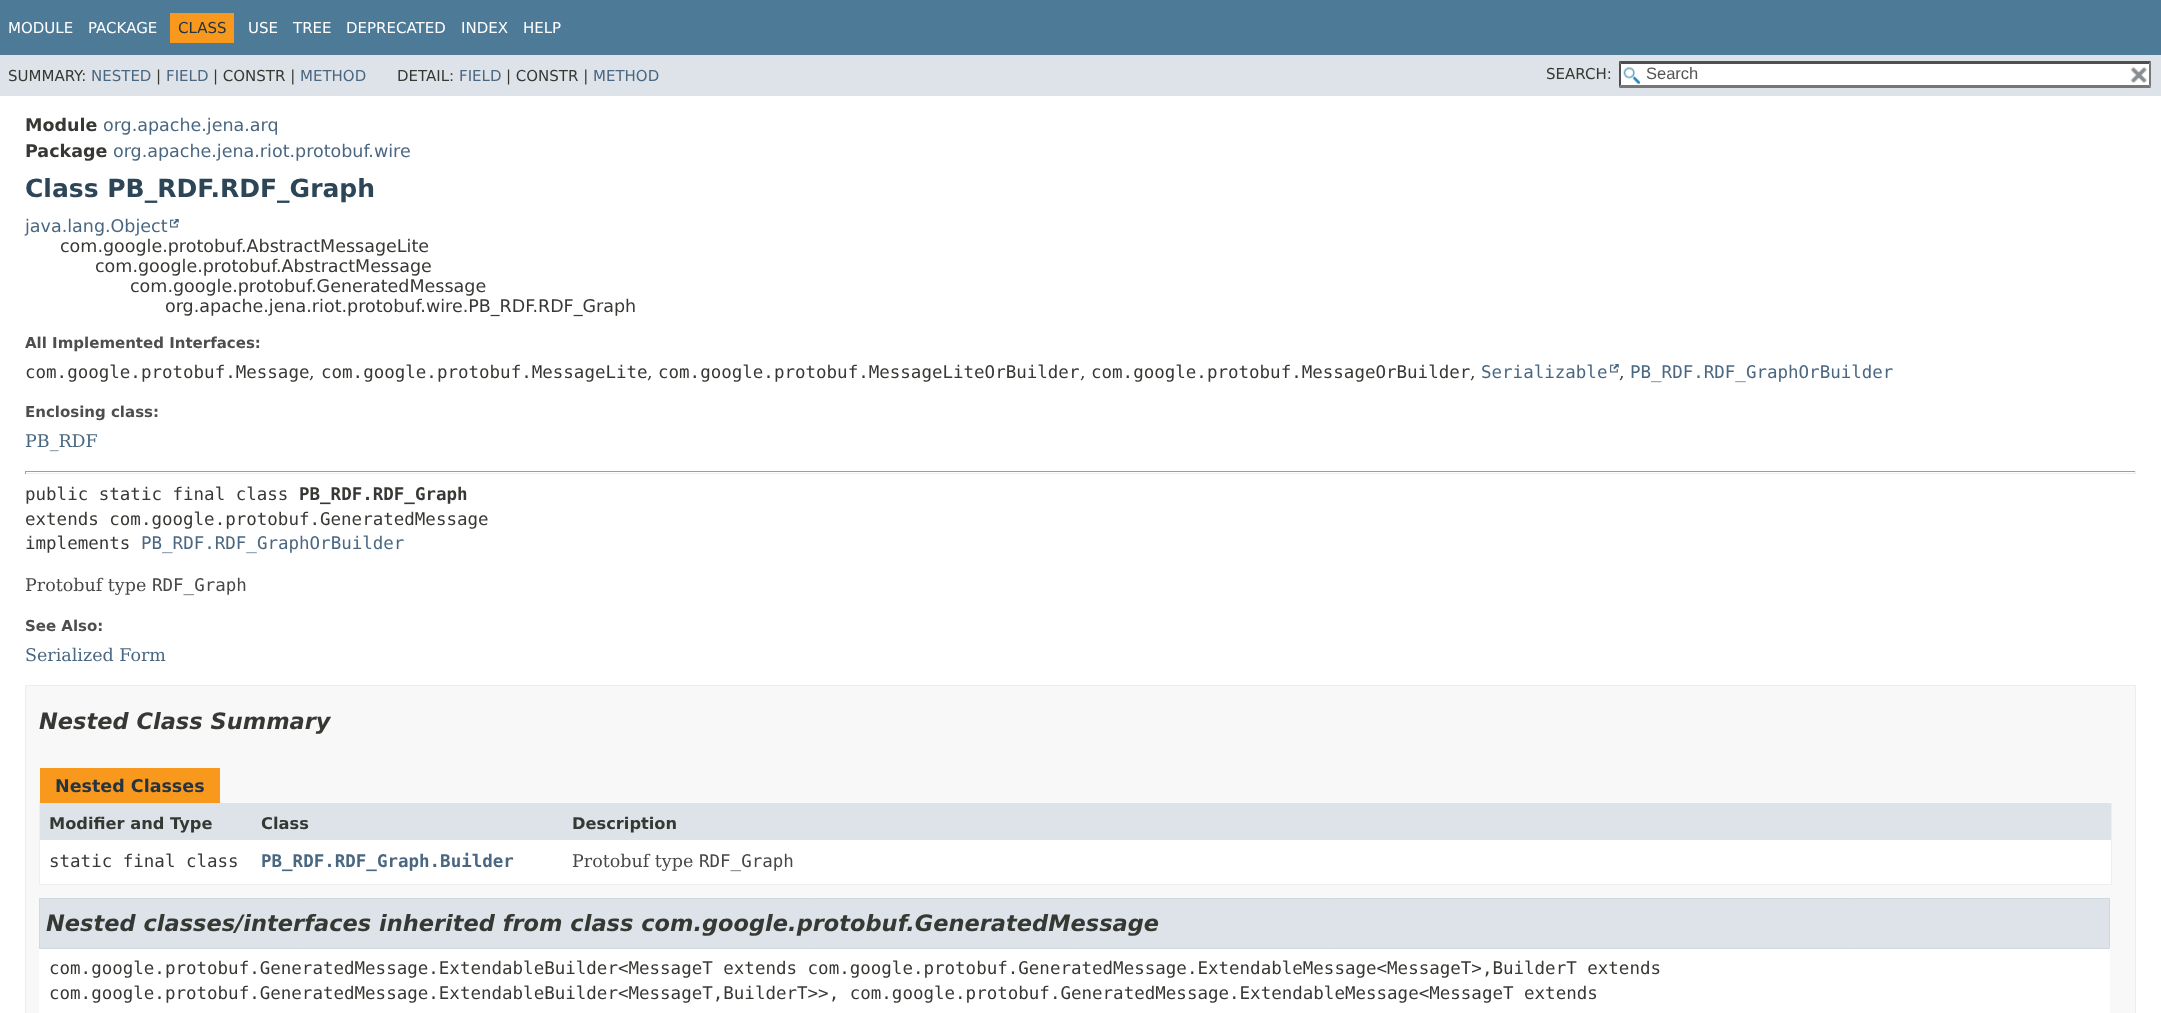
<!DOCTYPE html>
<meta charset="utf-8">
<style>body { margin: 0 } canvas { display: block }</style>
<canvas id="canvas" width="2161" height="1013"></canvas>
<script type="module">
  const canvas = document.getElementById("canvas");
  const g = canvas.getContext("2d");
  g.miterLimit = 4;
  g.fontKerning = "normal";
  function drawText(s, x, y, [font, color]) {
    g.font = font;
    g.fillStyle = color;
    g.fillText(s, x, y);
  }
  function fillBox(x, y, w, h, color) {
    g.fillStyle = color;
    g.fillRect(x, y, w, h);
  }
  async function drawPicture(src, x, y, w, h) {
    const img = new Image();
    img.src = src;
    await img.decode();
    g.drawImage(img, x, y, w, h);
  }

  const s1 = ["15px DejaVu Sans", "#FFFFFF"];
  const s2 = ["15px DejaVu Sans", "#253441"];
  const s3 = ["15px DejaVu Sans", "#353833"];
  const s4 = ["15px DejaVu Sans", "#4A6782"];
  const s5 = ["16.5px Liberation Sans", "#545454"];
  const s6 = ["bold 17.5px DejaVu Sans", "#353833"];
  const s7 = ["17.5px DejaVu Sans", "#4A6782"];
  const s8 = ["bold 25px DejaVu Sans", "#2C4557"];
  const s9 = ["17.5px DejaVu Sans", "#353833"];
  const s10 = ["bold 15px DejaVu Sans", "#4E4E4E"];
  const s11 = ["17.5px DejaVu Sans Mono", "#353833"];
  const s12 = ["17.5px DejaVu Serif", "#353833"];
  const s13 = ["17.5px DejaVu Sans Mono", "#4A6782"];
  const s14 = ["17.5px DejaVu Serif", "#4A6782"];
  const s15 = ["bold 17.5px DejaVu Sans Mono", "#353833"];
  const s16 = ["17.5px DejaVu Serif", "#474747"];
  const s17 = ["17.5px DejaVu Sans Mono", "#474747"];
  const s18 = ["italic bold 22.5px DejaVu Sans", "#353833"];
  const s19 = ["bold 17.5px DejaVu Sans", "#253441"];
  const s20 = ["bold 16.25px DejaVu Sans", "#353833"];
  const s21 = ["bold 17.5px DejaVu Sans Mono", "#4A6782"];

  fillBox(0, 0, 2161, 1013, "#FFFFFF");
  fillBox(0, 0, 2161, 55, "#4D7A97");
  drawText("MODULE", 8, 33, s1);
  drawText("PACKAGE", 88, 33, s1);
  fillBox(170, 13, 64, 30, "#F8981D");
  drawText("CLASS", 178, 33, s2);
  drawText("USE", 248, 33, s1);
  drawText("TREE", 293, 33, s1);
  drawText("DEPRECATED", 346, 33, s1);
  drawText("INDEX", 461, 33, s1);
  drawText("HELP", 523, 33, s1);
  fillBox(0, 55, 2161, 41, "#DEE3E9");
  drawText("SUMMARY:", 8, 81, s3);
  drawText("NESTED", 91, 81, s4);
  drawText("|", 156, 81, s3);
  drawText("FIELD", 166, 81, s4);
  drawText("| CONSTR |", 213, 81, s3);
  drawText("METHOD", 300, 81, s4);
  drawText("DETAIL:", 397, 81, s3);
  drawText("FIELD", 459, 81, s4);
  drawText("| CONSTR |", 506, 81, s3);
  drawText("METHOD", 593, 81, s4);
  drawText("SEARCH:", 1546, 79, s3);
  fillBox(1619, 61, 532, 27, "#FFFFFF");
  await drawPicture("pic1.png", 1623, 67, 17, 17);
  g.fillStyle = "#4F4F4F";
  g.beginPath();
  g.moveTo(1619, 61);
  g.lineTo(2151, 61);
  g.lineTo(2149, 64);
  g.lineTo(1621, 64);
  g.closePath();
  g.fill();
  g.fillStyle = "#767676";
  g.beginPath();
  g.moveTo(2151, 61);
  g.lineTo(2151, 87.5);
  g.lineTo(2149, 85);
  g.lineTo(2149, 64);
  g.closePath();
  g.fill();
  g.beginPath();
  g.moveTo(2151, 88);
  g.lineTo(1619, 88);
  g.lineTo(1621, 85);
  g.lineTo(2149, 85);
  g.closePath();
  g.fill();
  g.fillStyle = "#4F4F4F";
  g.beginPath();
  g.moveTo(1619, 87.5);
  g.lineTo(1619, 61);
  g.lineTo(1621, 64);
  g.lineTo(1621, 85);
  g.closePath();
  g.fill();
  drawText("Search", 1646, 79, s5);
  await drawPicture("pic2.png", 2130, 67, 17, 16);
  drawText("Module", 25, 131, s6);
  drawText("org.apache.jena.arq", 103, 131, s7);
  drawText("Package", 25, 157, s6);
  drawText("org.apache.jena.riot.protobuf.wire", 113, 157, s7);
  drawText("Class PB_RDF.RDF_Graph", 25, 197, s8);
  drawText("java.lang.Object", 25, 232, s7);
  await drawPicture("pic3.png", 170, 219, 9, 9);
  drawText("com.google.protobuf.AbstractMessageLite", 60, 252, s9);
  drawText("com.google.protobuf.AbstractMessage", 95, 272, s9);
  drawText("com.google.protobuf.GeneratedMessage", 130, 292, s9);
  drawText("org.apache.jena.riot.protobuf.wire.PB_RDF.RDF_Graph", 165, 312, s9);
  drawText("All Implemented Interfaces:", 25, 348, s10);
  drawText("com.google.protobuf.Message", 25, 378, s11);
  drawText(",", 309, 378, s12);
  drawText("com.google.protobuf.MessageLite", 321, 378, s11);
  drawText(",", 647, 378, s12);
  drawText("com.google.protobuf.MessageLiteOrBuilder", 658, 378, s11);
  drawText(",", 1080, 378, s12);
  drawText("com.google.protobuf.MessageOrBuilder", 1091, 378, s11);
  drawText(",", 1470, 378, s12);
  drawText("Serializable", 1481, 378, s13);
  await drawPicture("pic3.png", 1610, 364, 9, 9);
  drawText(",", 1619, 378, s12);
  drawText("PB_RDF.RDF_GraphOrBuilder", 1630, 378, s13);
  drawText("Enclosing class:", 25, 417, s10);
  drawText("PB_RDF", 25, 447, s14);
  fillBox(25, 471, 2111, 1, "#9F9F9F");
  fillBox(2135, 471, 1, 3, "#EEEEEE");
  fillBox(25, 473, 2111, 1, "#EEEEEE");
  fillBox(25, 471, 1, 3, "#9F9F9F");
  drawText("public static final class", 25, 500, s11);
  drawText("PB_RDF.RDF_Graph", 299, 500, s15);
  drawText("extends com.google.protobuf.GeneratedMessage", 25, 525, s11);
  drawText("implements", 25, 549, s11);
  drawText("PB_RDF.RDF_GraphOrBuilder", 141, 549, s13);
  drawText("Protobuf type", 25, 591, s16);
  drawText("RDF_Graph", 152, 591, s17);
  drawText("See Also:", 25, 631, s10);
  drawText("Serialized Form", 25, 661, s14);
  g.fillStyle = "#F8F8F8";
  g.beginPath();
  g.rect(25.5, 685.5, 2110, 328);
  g.fill();
  g.strokeStyle = "#EDEDED";
  g.stroke();
  drawText("Nested Class Summary", 39, 729, s18);
  fillBox(40, 768, 180, 35, "#F8981D");
  drawText("Nested Classes", 55, 792, s19);
  fillBox(2111, 803, 1, 82, "#EEEEEE");
  fillBox(39, 884, 2074, 1, "#EEEEEE");
  fillBox(39, 803, 1, 82, "#EEEEEE");
  fillBox(40, 803, 524, 37, "#DEE3E9");
  drawText("Modifier and Type", 49, 829, s20);
  drawText("Class", 261, 829, s20);
  fillBox(564, 803, 1547, 37, "#DEE3E9");
  drawText("Description", 572, 829, s20);
  fillBox(40, 840, 524, 44, "#FFFFFF");
  drawText("static final class", 49, 867, s11);
  drawText("PB_RDF.RDF_Graph.Builder", 261, 867, s21);
  fillBox(564, 840, 1547, 44, "#FFFFFF");
  drawText("Protobuf type", 572, 867, s16);
  drawText("RDF_Graph", 699, 867, s17);
  fillBox(39, 949, 2071, 64, "#FFFFFF");
  g.fillStyle = "#DEE3E9";
  g.beginPath();
  g.rect(39.5, 898.5, 2070, 50);
  g.fill();
  g.strokeStyle = "#D0D9E0";
  g.stroke();
  drawText("Nested classes/interfaces inherited from class com.google.protobuf.GeneratedMessage", 46, 931, s18);
  drawText("com.google.protobuf.GeneratedMessage.ExtendableBuilder<MessageT extends com.google.protobuf.GeneratedMessage.ExtendableMessage<MessageT>,BuilderT extends", 49, 974, s11);
  drawText("com.google.protobuf.GeneratedMessage.ExtendableBuilder<MessageT,BuilderT>>, com.google.protobuf.GeneratedMessage.ExtendableMessage<MessageT extends", 49, 999, s11);
</script>
